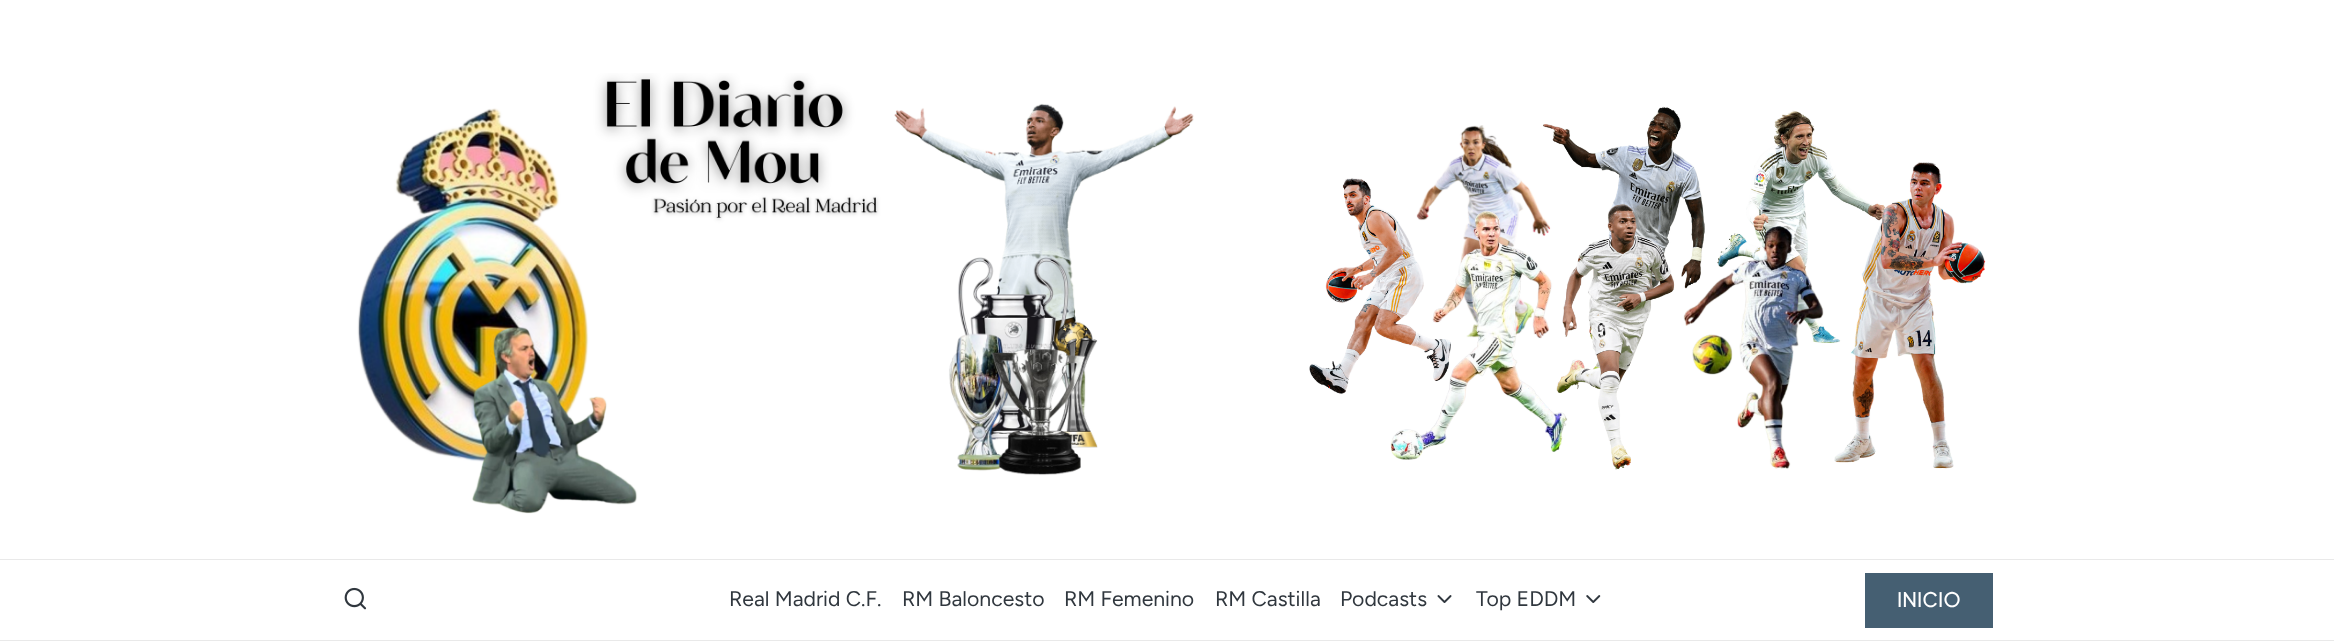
<!DOCTYPE html>
<meta charset="utf-8">
<style>body { margin: 0 } canvas { display: block }</style>
<canvas id="canvas" width="2334" height="641"></canvas>
<script type="module">
  const canvas = document.getElementById("canvas");
  const g = canvas.getContext("2d");
  g.miterLimit = 4;
  g.fontKerning = "normal";
  function drawText(s, x, y, [font, color]) {
    g.font = font;
    g.fillStyle = color;
    g.fillText(s, x, y);
  }
  function fillBox(x, y, w, h, color) {
    g.fillStyle = color;
    g.fillRect(x, y, w, h);
  }
  async function drawPicture(src, x, y, w, h) {
    const img = new Image();
    img.src = src;
    await img.decode();
    g.drawImage(img, x, y, w, h);
  }

  const s1 = ["300 21.25px Figtree", "#30373E"];
  const s2 = ["500 20px Plus Jakarta Sans", "#FFFFFF"];

  fillBox(0, 0, 2334, 641, "#FFFFFF");
  await drawPicture("pic1.png", 357, 73, 837, 441);
  await drawPicture("pic2.png", 1309, 106, 677, 364);
  fillBox(0, 559, 2334, 1, "#E9E9E9");
  fillBox(0, 640, 2334, 1, "#E9E9E9");
  await drawPicture("pic3.png", 344, 587, 23, 23);
  drawText("Real Madrid C.F.", 729, 606, s1);
  drawText("RM Baloncesto", 902, 606, s1);
  drawText("RM Femenino", 1064, 606, s1);
  drawText("RM Castilla", 1215, 606, s1);
  drawText("Podcasts", 1340, 606, s1);
  await drawPicture("pic4.png", 1437, 595, 15, 8);
  drawText("Top EDDM", 1476, 606, s1);
  await drawPicture("pic5.png", 1586, 595, 15, 8);
  fillBox(1865, 573, 128, 55, "#455F72");
  drawText("INICIO", 1897, 607, s2);
</script>
